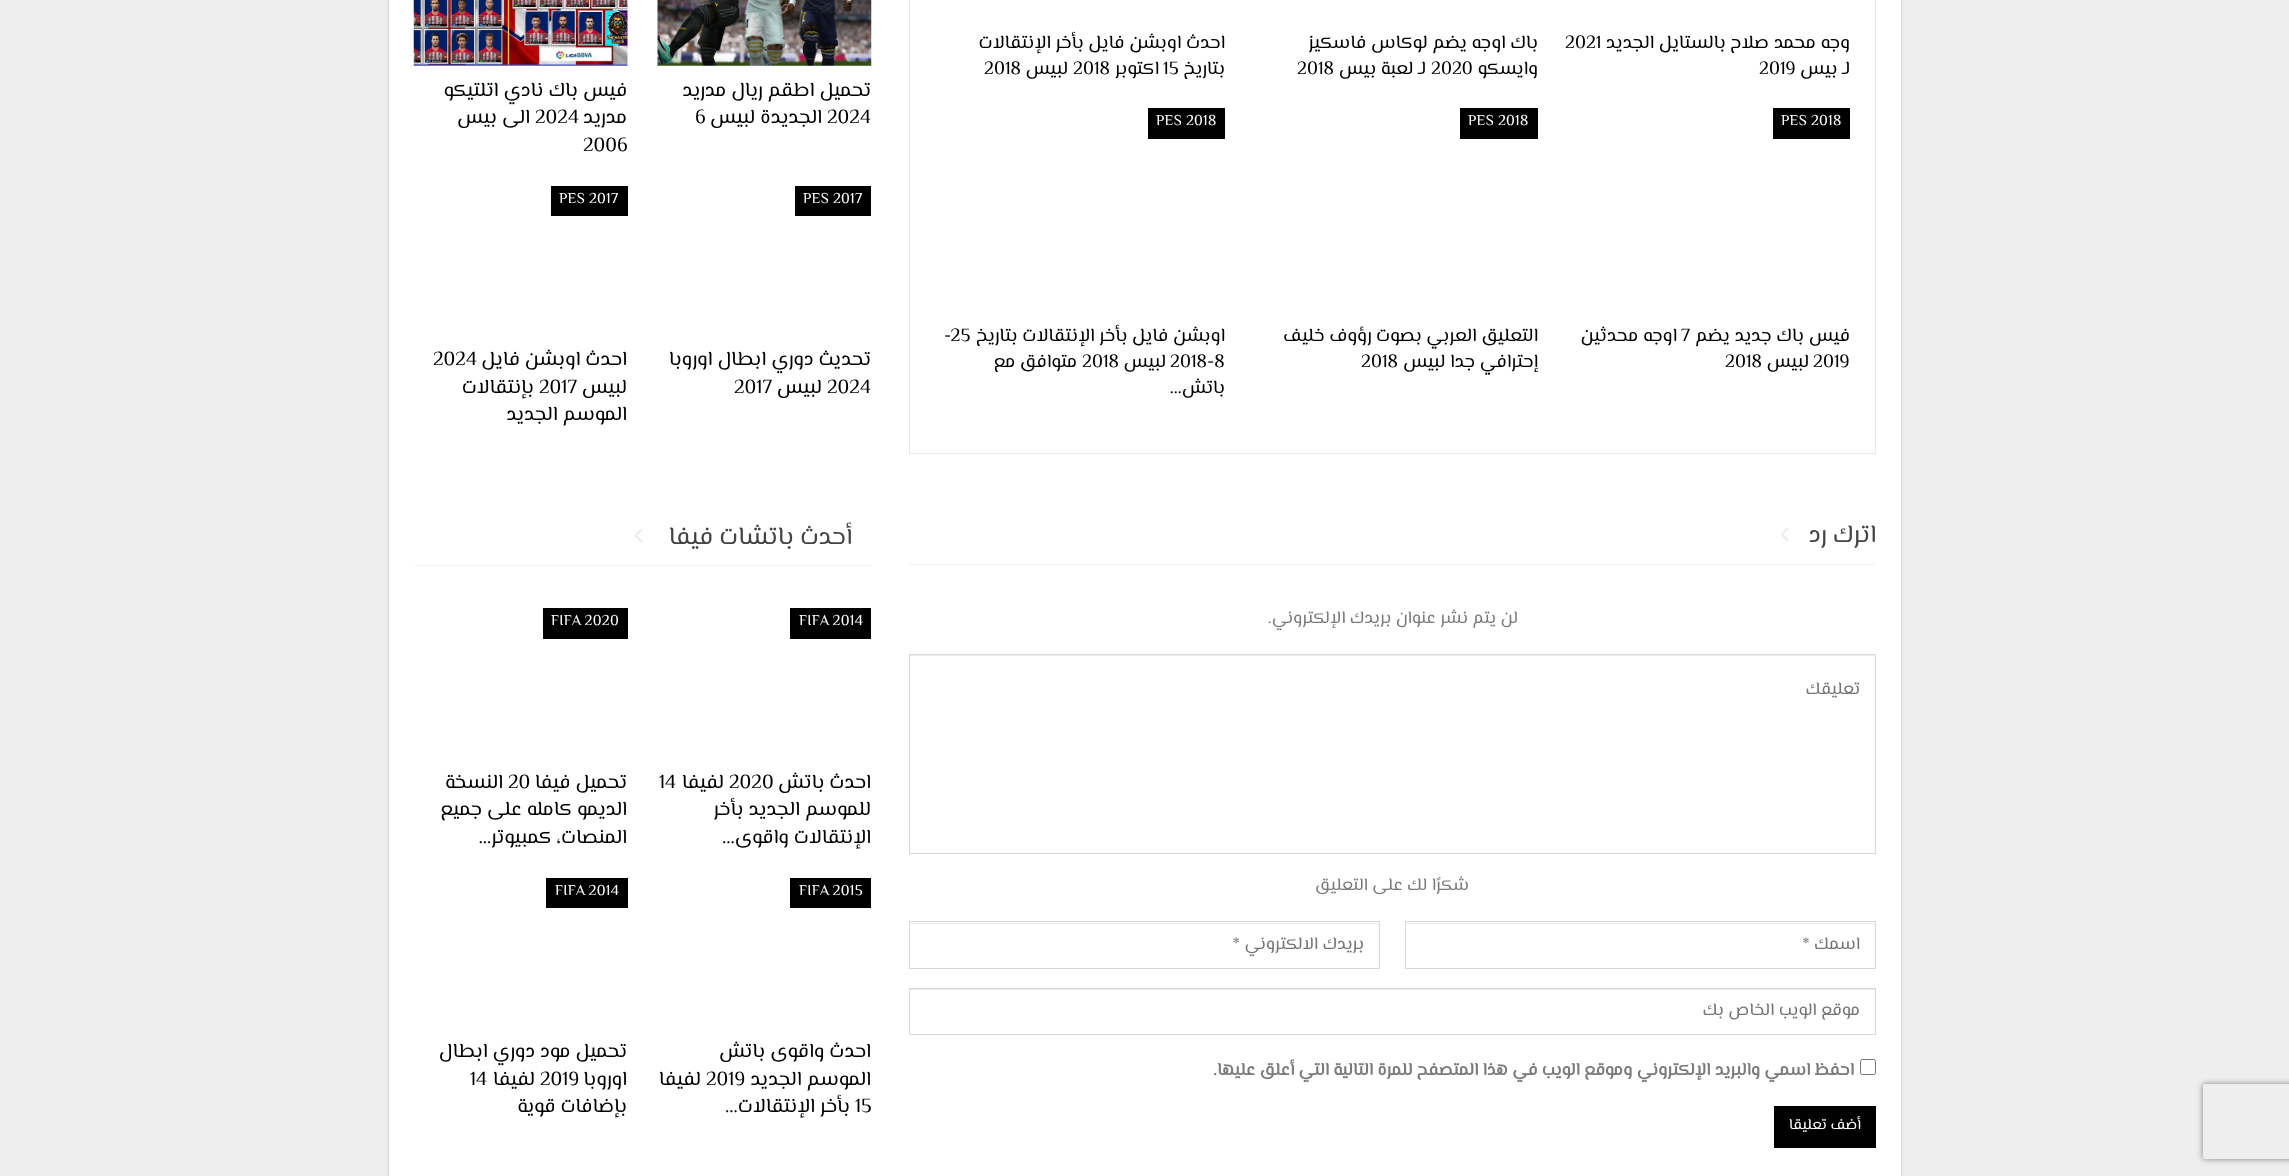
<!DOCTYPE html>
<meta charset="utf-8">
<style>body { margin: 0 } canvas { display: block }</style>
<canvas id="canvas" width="2289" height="1176"></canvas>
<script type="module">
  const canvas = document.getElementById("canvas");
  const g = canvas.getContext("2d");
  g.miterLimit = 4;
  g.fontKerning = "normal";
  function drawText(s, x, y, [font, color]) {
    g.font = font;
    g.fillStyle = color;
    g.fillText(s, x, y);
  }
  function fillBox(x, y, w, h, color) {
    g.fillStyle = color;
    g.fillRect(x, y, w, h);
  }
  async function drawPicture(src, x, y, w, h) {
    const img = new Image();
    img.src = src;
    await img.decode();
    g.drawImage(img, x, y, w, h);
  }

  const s1 = ["18.75px El Messiri", "#000000"];
  const s2 = ["15px El Messiri", "#FFFFFF"];
  const s3 = ["25px El Messiri", "#444444"];
  const s4 = ["17.5px El Messiri", "#7B7B7B"];
  const s5 = ["17.5px El Messiri", "#757575"];
  const s6 = ["bold 17.5px El Messiri", "#7B7B7B"];
  const s7 = ["20px El Messiri", "#000000"];

  fillBox(0, 0, 2289, 1176, "#EEEEEE");
  g.save();
  g.beginPath();
  g.moveTo(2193, 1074);
  g.lineTo(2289, 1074);
  g.lineTo(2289, 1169);
  g.lineTo(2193, 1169);
  g.closePath();
  g.moveTo(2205.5, 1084);
  g.lineTo(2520.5, 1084);
  g.bezierCurveTo(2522, 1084, 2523, 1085, 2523, 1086.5);
  g.lineTo(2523, 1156.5);
  g.bezierCurveTo(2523, 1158, 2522, 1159, 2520.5, 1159);
  g.lineTo(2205.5, 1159);
  g.bezierCurveTo(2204, 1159, 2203, 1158, 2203, 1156.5);
  g.lineTo(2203, 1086.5);
  g.bezierCurveTo(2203, 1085, 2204, 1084, 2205.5, 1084);
  g.closePath();
  g.clip("evenodd");
  g.fillStyle = "#808080";
  g.filter = "blur(3px)";
  g.beginPath();
  g.roundRect(2203, 1084, 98, 75, 2.5);
  g.fill();
  g.filter = "none";
  g.restore();
  g.fillStyle = "rgba(0, 0, 0, 0.27)";
  g.filter = "blur(1px)";
  g.beginPath();
  g.rect(389, -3, 1512, 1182);
  g.fill();
  g.filter = "none";
  fillBox(389, 0, 1512, 1176, "#FFFFFF");
  g.strokeStyle = "#E8E8E8";
  g.strokeRect(909.5, -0.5, 966, 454);
  g.direction = "rtl";
  drawText("وجه محمد صلاح بالستايل الجديد", 1850, 48, s1);
  g.direction = "ltr";
  drawText("2021", 1565, 48, s1);
  g.direction = "rtl";
  drawText("لـ بيس", 1850, 74, s1);
  g.direction = "ltr";
  drawText("2019", 1759, 74, s1);
  g.direction = "rtl";
  drawText("باك اوجه يضم لوكاس فاسكيز", 1538, 48, s1);
  drawText("وايسكو", 1538, 74, s1);
  g.direction = "ltr";
  drawText("2020", 1431, 74, s1);
  g.direction = "rtl";
  drawText("لـ لعبة بيس", 1426, 74, s1);
  g.direction = "ltr";
  drawText("2018", 1297, 74, s1);
  g.direction = "rtl";
  drawText("احدث اوبشن فايل بأخر الإنتقالات", 1225, 48, s1);
  drawText("بتاريخ", 1225, 74, s1);
  g.direction = "ltr";
  drawText("15", 1163, 74, s1);
  g.direction = "rtl";
  drawText("اكتوبر", 1159, 74, s1);
  g.direction = "ltr";
  drawText("2018", 1073, 74, s1);
  g.direction = "rtl";
  drawText("لبيس", 1068, 74, s1);
  g.direction = "ltr";
  drawText("2018", 984, 74, s1);
  fillBox(1773, 108, 77, 31, "#000000");
  g.letterSpacing = "0.25px";
  drawText("PES 2018", 1781, 125, s2);
  g.letterSpacing = "0px";
  g.direction = "rtl";
  drawText("فيس باك جديد يضم", 1850, 341, s1);
  g.direction = "ltr";
  drawText("7", 1681, 341, s1);
  g.direction = "rtl";
  drawText("اوجه محدثين", 1677, 341, s1);
  g.direction = "ltr";
  drawText("2019", 1813, 367, s1);
  g.direction = "rtl";
  drawText("لبيس", 1809, 367, s1);
  g.direction = "ltr";
  drawText("2018", 1725, 367, s1);
  fillBox(1460, 108, 78, 31, "#000000");
  g.letterSpacing = "0.25px";
  drawText("PES 2018", 1468, 125, s2);
  g.letterSpacing = "0px";
  g.direction = "rtl";
  drawText("التعليق العربي بصوت رؤوف خليف", 1538, 341, s1);
  drawText("إحترافي جدا لبيس", 1538, 367, s1);
  g.direction = "ltr";
  drawText("2018", 1361, 367, s1);
  fillBox(1148, 108, 77, 31, "#000000");
  g.letterSpacing = "0.25px";
  drawText("PES 2018", 1156, 125, s2);
  g.letterSpacing = "0px";
  g.direction = "rtl";
  drawText("اوبشن فايل بأخر الإنتقالات بتاريخ", 1225, 341, s1);
  g.direction = "ltr";
  drawText("-25", 944, 341, s1);
  drawText("2018-8", 1170, 367, s1);
  g.direction = "rtl";
  drawText("لبيس", 1166, 367, s1);
  g.direction = "ltr";
  drawText("2018", 1082, 367, s1);
  g.direction = "rtl";
  drawText("متوافق مع", 1077, 367, s1);
  drawText("باتش…", 1225, 393, s1);
  drawText("اترك رد", 1876, 542, s3);
  await drawPicture("pic1.png", 1781, 527, 8, 15);
  fillBox(909, 564, 967, 1, "#F2F2F2");
  drawText("لن يتم نشر عنوان بريدك الإلكتروني.", 1518, 623, s4);
  fillBox(910, 655, 965, 1, "#ECECEC");
  g.strokeStyle = "#D8D8D8";
  g.strokeRect(909.5, 654.5, 966, 199);
  drawText("تعليقك", 1860, 694, s5);
  drawText("شكرًا لك على التعليق", 1469, 890, s4);
  fillBox(1406, 923, 469, 1, "#ECECEC");
  g.strokeRect(1405.5, 921.5, 470, 47);
  drawText("اسمك *", 1860, 949, s5);
  fillBox(910, 923, 469, 1, "#ECECEC");
  g.strokeRect(909.5, 921.5, 470, 47);
  drawText("بريدك الالكتروني *", 1364, 949, s5);
  fillBox(910, 989, 965, 1, "#ECECEC");
  g.strokeRect(909.5, 988.5, 966, 46);
  drawText("موقع الويب الخاص بك", 1860, 1015, s5);
  g.beginPath();
  g.roundRect(1860.5, 1059.5, 15, 15, 2);
  g.strokeStyle = "#767676";
  g.stroke();
  drawText("احفظ اسمي والبريد الإلكتروني وموقع الويب في هذا المتصفح للمرة التالية التي أعلق عليها.", 1854, 1075, s6);
  fillBox(1774, 1106, 102, 42, "#000000");
  drawText("أضف تعليقا", 1861, 1129, s2);
  await drawPicture("pic2.png", 657, 0, 215, 66);
  drawText("تحميل اطقم ريال مدريد", 871, 96, s7);
  g.direction = "ltr";
  drawText("2024", 827, 123, s7);
  g.direction = "rtl";
  drawText("الجديدة لبيس", 822, 123, s7);
  g.direction = "ltr";
  drawText("6", 695, 123, s7);
  await drawPicture("pic3.png", 413, 0, 215, 66);
  g.direction = "rtl";
  drawText("فيس باك نادي اتلتيكو", 627, 96, s7);
  drawText("مدريد", 627, 123, s7);
  g.direction = "ltr";
  drawText("2024", 535, 123, s7);
  g.direction = "rtl";
  drawText("الى بيس", 530, 123, s7);
  g.direction = "ltr";
  drawText("2006", 583, 151, s7);
  fillBox(795, 186, 76, 30, "#000000");
  g.letterSpacing = "0.25px";
  drawText("PES 2017", 803, 203, s2);
  g.letterSpacing = "0px";
  g.direction = "rtl";
  drawText("تحديث دوري ابطال اوروبا", 871, 365, s7);
  g.direction = "ltr";
  drawText("2024", 827, 393, s7);
  g.direction = "rtl";
  drawText("لبيس", 822, 393, s7);
  g.direction = "ltr";
  drawText("2017", 734, 393, s7);
  fillBox(551, 186, 77, 30, "#000000");
  g.letterSpacing = "0.25px";
  drawText("PES 2017", 559, 203, s2);
  g.letterSpacing = "0px";
  g.direction = "rtl";
  drawText("احدث اوبشن فايل", 627, 365, s7);
  g.direction = "ltr";
  drawText("2024", 433, 365, s7);
  g.direction = "rtl";
  drawText("لبيس", 627, 393, s7);
  g.direction = "ltr";
  drawText("2017", 539, 393, s7);
  g.direction = "rtl";
  drawText("بإنتقالات", 534, 393, s7);
  drawText("الموسم الجديد", 627, 420, s7);
  drawText("أحدث باتشات فيفا", 852, 544, s3);
  await drawPicture("pic4.png", 634, 529, 9, 14);
  fillBox(414, 565, 457, 1, "#F2F2F2");
  fillBox(790, 608, 81, 31, "#000000");
  g.letterSpacing = "0.25px";
  g.wordSpacing = "-1px";
  g.direction = "ltr";
  drawText("FIFA 2014", 799, 625, s2);
  g.letterSpacing = "0px";
  g.wordSpacing = "0px";
  g.direction = "rtl";
  drawText("احدث باتش", 871, 788, s7);
  g.direction = "ltr";
  drawText("2020", 729, 788, s7);
  g.direction = "rtl";
  drawText("لفيفا", 724, 788, s7);
  g.direction = "ltr";
  drawText("14", 659, 788, s7);
  g.direction = "rtl";
  drawText("للموسم الجديد بأخر", 871, 815, s7);
  drawText("الإنتقالات واقوى…", 871, 843, s7);
  fillBox(543, 608, 85, 31, "#000000");
  g.letterSpacing = "0.25px";
  g.wordSpacing = "-1px";
  g.direction = "ltr";
  drawText("FIFA 2020", 551, 625, s2);
  g.letterSpacing = "0px";
  g.wordSpacing = "0px";
  g.direction = "rtl";
  drawText("تحميل فيفا", 627, 788, s7);
  g.direction = "ltr";
  drawText("20", 508, 788, s7);
  g.direction = "rtl";
  drawText("النسخة", 503, 788, s7);
  drawText("الديمو كامله على جميع", 627, 815, s7);
  drawText("المنصات، كمبيوتر…", 627, 843, s7);
  fillBox(790, 878, 81, 30, "#000000");
  g.letterSpacing = "0.25px";
  g.wordSpacing = "-1px";
  g.direction = "ltr";
  drawText("FIFA 2015", 799, 895, s2);
  g.letterSpacing = "0px";
  g.wordSpacing = "0px";
  g.direction = "rtl";
  drawText("احدث واقوى باتش", 871, 1057, s7);
  drawText("الموسم الجديد", 871, 1085, s7);
  g.direction = "ltr";
  drawText("2019", 706, 1085, s7);
  g.direction = "rtl";
  drawText("لفيفا", 701, 1085, s7);
  g.direction = "ltr";
  drawText("15", 855, 1112, s7);
  g.direction = "rtl";
  drawText("بأخر الإنتقالات…", 850, 1112, s7);
  fillBox(546, 878, 82, 30, "#000000");
  g.letterSpacing = "0.25px";
  g.wordSpacing = "-1px";
  g.direction = "ltr";
  drawText("FIFA 2014", 555, 895, s2);
  g.letterSpacing = "0px";
  g.wordSpacing = "0px";
  g.direction = "rtl";
  drawText("تحميل مود دوري ابطال", 627, 1057, s7);
  drawText("اوروبا", 627, 1085, s7);
  g.direction = "ltr";
  drawText("2019", 540, 1085, s7);
  g.direction = "rtl";
  drawText("لفيفا", 535, 1085, s7);
  g.direction = "ltr";
  drawText("14", 470, 1085, s7);
  g.direction = "rtl";
  drawText("بإضافات قوية", 627, 1112, s7);
</script>
